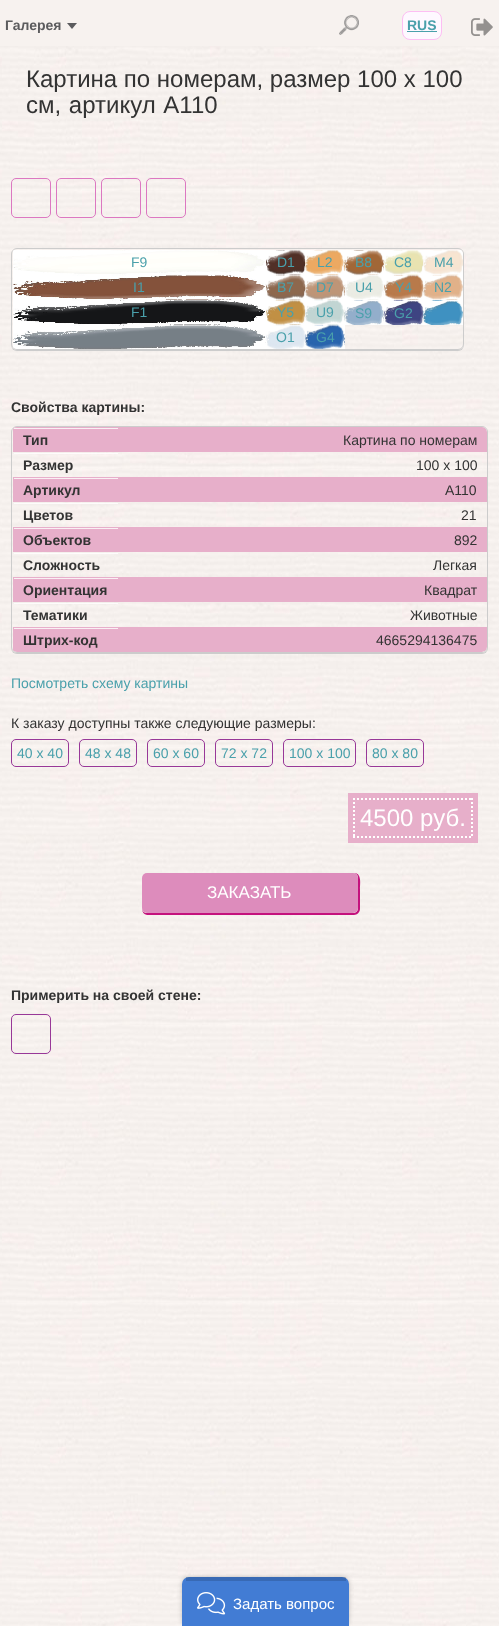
<!DOCTYPE html>
<meta charset="utf-8">
<style>body { margin: 0 } canvas { display: block }</style>
<canvas id="canvas" width="499" height="1626"></canvas>
<script type="module">
  const canvas = document.getElementById("canvas");
  const g = canvas.getContext("2d");
  g.miterLimit = 4;
  g.fontKerning = "normal";
  function drawText(s, x, y, [font, color]) {
    g.font = font;
    g.fillStyle = color;
    g.fillText(s, x, y);
  }
  function fillBox(x, y, w, h, color) {
    g.fillStyle = color;
    g.fillRect(x, y, w, h);
  }
  function fillRounded(x, y, w, h, r, color) {
    g.fillStyle = color;
    g.beginPath();
    g.roundRect(x, y, w, h, r);
    g.fill();
  }
  async function drawPicture(src, x, y, w, h) {
    const img = new Image();
    img.src = src;
    await img.decode();
    g.drawImage(img, x, y, w, h);
  }

  const s1 = ["bold 14px Liberation Sans", "#5C5C5E"];
  const s2 = ["bold 14px Liberation Sans", "#4AA0AB"];
  const s3 = ["24px Liberation Sans", "#333333"];
  const s4 = ["14px Liberation Sans", "#4AA0AB"];
  const s5 = ["bold 14px Liberation Sans", "#333333"];
  const s6 = ["14px Liberation Sans", "#333333"];
  const s7 = ["24px Liberation Sans", "#FFFFFF"];
  const s8 = ["17px Liberation Sans", "#FFFFFF"];
  const s9 = ["15px Liberation Sans", "#FFFFFF"];

  fillBox(0, 0, 499, 1626, "#F7F2EF");
  drawText("Галерея", 5, 30, s1);
  g.beginPath();
  g.moveTo(67, 23);
  g.lineTo(77, 23);
  g.lineTo(72, 29);
  g.closePath();
  g.fill();
  await drawPicture("pic1.png", 339, 15, 20, 20);
  g.fillStyle = "#FEF8FF";
  g.beginPath();
  g.roundRect(402.5, 11.5, 39, 28, 7.5);
  g.fill();
  g.strokeStyle = "#FDBEF3";
  g.stroke();
  drawText("RUS", 407, 30, s2);
  fillBox(407, 31, 30, 1, "#4AA0AB");
  await drawPicture("pic2.png", 471, 18, 22, 18);
  await drawPicture("pic3.png", 0, 46, 499, 1580);
  drawText("Картина по номерам, размер 100 x 100", 26, 87, s3);
  g.wordSpacing = "1px";
  drawText("см, артикул A110", 26, 113, s3);
  g.beginPath();
  g.roundRect(11.5, 178.5, 39, 39, 4.5);
  g.strokeStyle = "#DC78C1";
  g.stroke();
  g.beginPath();
  g.roundRect(56.5, 178.5, 39, 39, 4.5);
  g.stroke();
  g.beginPath();
  g.roundRect(101.5, 178.5, 39, 39, 4.5);
  g.stroke();
  g.beginPath();
  g.roundRect(146.5, 178.5, 39, 39, 4.5);
  g.stroke();
  g.save();
  g.beginPath();
  g.moveTo(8, 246);
  g.lineTo(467, 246);
  g.lineTo(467, 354);
  g.lineTo(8, 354);
  g.closePath();
  g.moveTo(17, 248);
  g.lineTo(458, 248);
  g.bezierCurveTo(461.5, 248, 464, 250.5, 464, 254);
  g.lineTo(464, 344);
  g.bezierCurveTo(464, 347.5, 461.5, 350, 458, 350);
  g.lineTo(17, 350);
  g.bezierCurveTo(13.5, 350, 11, 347.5, 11, 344);
  g.lineTo(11, 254);
  g.bezierCurveTo(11, 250.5, 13.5, 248, 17, 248);
  g.closePath();
  g.clip("evenodd");
  g.fillStyle = "#CCCCCC";
  g.filter = "blur(0.5px)";
  g.beginPath();
  g.roundRect(11, 249, 453, 102, 6);
  g.fill();
  g.filter = "none";
  g.restore();
  g.beginPath();
  g.roundRect(11.5, 248.5, 452, 101, 5.5);
  g.strokeStyle = "#CCCCCC";
  g.stroke();
  await drawPicture("pic4.png", 13, 250, 253, 25);
  g.wordSpacing = "0px";
  drawText("F9", 131, 267, s4);
  await drawPicture("pic5.png", 266, 250, 39, 25);
  drawText("D1", 277, 267, s4);
  await drawPicture("pic6.png", 305, 250, 40, 25);
  drawText("L2", 317, 267, s4);
  await drawPicture("pic7.png", 345, 250, 39, 25);
  drawText("B8", 355, 267, s4);
  await drawPicture("pic8.png", 384, 250, 39, 25);
  drawText("C8", 394, 267, s4);
  await drawPicture("pic9.png", 423, 250, 40, 25);
  drawText("M4", 434, 267, s4);
  await drawPicture("pic10.png", 13, 275, 253, 25);
  drawText("I1", 133, 292, s4);
  await drawPicture("pic11.png", 266, 275, 39, 25);
  drawText("B7", 277, 292, s4);
  await drawPicture("pic12.png", 305, 275, 40, 25);
  drawText("D7", 316, 292, s4);
  await drawPicture("pic13.png", 345, 275, 39, 25);
  drawText("U4", 355, 292, s4);
  await drawPicture("pic14.png", 384, 275, 39, 25);
  drawText("Y4", 395, 292, s4);
  await drawPicture("pic15.png", 423, 275, 40, 25);
  drawText("N2", 434, 292, s4);
  await drawPicture("pic16.png", 13, 300, 253, 25);
  drawText("F1", 131, 317, s4);
  await drawPicture("pic17.png", 266, 300, 39, 25);
  drawText("Y5", 277, 317, s4);
  await drawPicture("pic18.png", 305, 300, 40, 25);
  drawText("U9", 316, 317, s4);
  await drawPicture("pic19.png", 345, 300, 39, 25);
  drawText("S9", 355, 318, s4);
  await drawPicture("pic20.png", 384, 300, 39, 25);
  drawText("G2", 394, 318, s4);
  await drawPicture("pic21.png", 423, 300, 40, 25);
  await drawPicture("pic22.png", 13, 325, 253, 24);
  await drawPicture("pic23.png", 266, 325, 39, 24);
  drawText("O1", 276, 342, s4);
  await drawPicture("pic24.png", 305, 325, 40, 24);
  drawText("G4", 316, 342, s4);
  drawText("Свойства картины:", 11, 412, s5);
  g.save();
  g.beginPath();
  g.moveTo(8, 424);
  g.lineTo(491, 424);
  g.lineTo(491, 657);
  g.lineTo(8, 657);
  g.closePath();
  g.moveTo(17, 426);
  g.lineTo(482, 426);
  g.bezierCurveTo(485.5, 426, 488, 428.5, 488, 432);
  g.lineTo(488, 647);
  g.bezierCurveTo(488, 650.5, 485.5, 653, 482, 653);
  g.lineTo(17, 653);
  g.bezierCurveTo(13.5, 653, 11, 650.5, 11, 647);
  g.lineTo(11, 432);
  g.bezierCurveTo(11, 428.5, 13.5, 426, 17, 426);
  g.closePath();
  g.clip("evenodd");
  g.fillStyle = "#CCCCCC";
  g.filter = "blur(0.5px)";
  g.beginPath();
  g.roundRect(11, 427, 477, 227, 6);
  g.fill();
  g.filter = "none";
  g.restore();
  g.beginPath();
  g.roundRect(11.5, 426.5, 476, 226, 5.5);
  g.stroke();
  g.save();
  g.beginPath();
  g.roundRect(12, 427, 475, 225, 5);
  g.clip();
  g.fillStyle = "#E7AFCA";
  g.beginPath();
  g.roundRect(13, 427, 474, 25, [0, 5, 0, 0]);
  g.fill();
  g.restore();
  fillBox(14, 428, 104, 1, "#FAEFF4");
  drawText("Тип", 23, 445, s5);
  drawText("Картина по номерам", 343, 445, s6);
  fillBox(14, 453, 104, 1, "rgba(255, 255, 255, 0.8)");
  drawText("Размер", 23, 470, s5);
  drawText("100 x 100", 416, 470, s6);
  fillBox(13, 477, 474, 25, "#E7AFCA");
  fillBox(14, 478, 104, 1, "#FAEFF4");
  drawText("Артикул", 23, 495, s5);
  drawText("A110", 445, 495, s6);
  fillBox(14, 503, 104, 1, "rgba(255, 255, 255, 0.8)");
  drawText("Цветов", 23, 520, s5);
  drawText("21", 461, 520, s6);
  fillBox(13, 527, 474, 25, "#E7AFCA");
  fillBox(14, 528, 104, 1, "#FAEFF4");
  drawText("Объектов", 23, 545, s5);
  drawText("892", 454, 545, s6);
  fillBox(14, 553, 104, 1, "rgba(255, 255, 255, 0.8)");
  drawText("Сложность", 23, 570, s5);
  drawText("Легкая", 433, 570, s6);
  fillBox(13, 577, 474, 25, "#E7AFCA");
  fillBox(14, 578, 104, 1, "#FAEFF4");
  drawText("Ориентация", 23, 595, s5);
  drawText("Квадрат", 424, 595, s6);
  fillBox(14, 603, 104, 1, "rgba(255, 255, 255, 0.8)");
  drawText("Тематики", 23, 620, s5);
  drawText("Животные", 410, 620, s6);
  g.save();
  g.beginPath();
  g.roundRect(12, 427, 475, 225, 5);
  g.clip();
  g.fillStyle = "#E7AFCA";
  g.beginPath();
  g.roundRect(13, 627, 474, 25, [0, 0, 5, 0]);
  g.fill();
  g.restore();
  fillBox(14, 628, 104, 1, "#FAEFF4");
  drawText("Штрих-код", 23, 645, s5);
  drawText("4665294136475", 376, 645, s6);
  drawText("Посмотреть схему картины", 11, 688, s4);
  drawText("К заказу доступны также следующие размеры:", 11, 728, s6);
  g.beginPath();
  g.roundRect(11.5, 739.5, 57, 27, 4.5);
  g.strokeStyle = "#983898";
  g.stroke();
  drawText("40 x 40", 17, 758, s4);
  g.beginPath();
  g.roundRect(79.5, 739.5, 57, 27, 4.5);
  g.stroke();
  drawText("48 x 48", 85, 758, s4);
  g.beginPath();
  g.roundRect(147.5, 739.5, 57, 27, 4.5);
  g.stroke();
  drawText("60 x 60", 153, 758, s4);
  g.beginPath();
  g.roundRect(215.5, 739.5, 57, 27, 4.5);
  g.stroke();
  drawText("72 x 72", 221, 758, s4);
  g.beginPath();
  g.roundRect(283.5, 739.5, 72, 27, 4.5);
  g.stroke();
  drawText("100 x 100", 289, 758, s4);
  g.beginPath();
  g.roundRect(366.5, 739.5, 57, 27, 4.5);
  g.stroke();
  drawText("80 x 80", 372, 758, s4);
  fillBox(348, 793, 130, 50, "#E7AFCA");
  g.beginPath();
  g.moveTo(353, 799);
  g.lineTo(473, 799);
  g.strokeStyle = "#FFFFFF";
  g.lineWidth = 2;
  g.setLineDash([2, 2]);
  g.stroke();
  g.beginPath();
  g.moveTo(472, 798);
  g.lineTo(472, 838);
  g.stroke();
  g.beginPath();
  g.moveTo(353, 837);
  g.lineTo(473, 837);
  g.stroke();
  g.beginPath();
  g.moveTo(354, 798);
  g.lineTo(354, 838);
  g.stroke();
  drawText("4500 руб.", 360, 826, s7);
  g.fillStyle = "#C4127D";
  g.beginPath();
  g.moveTo(354, 873);
  g.lineTo(353, 873);
  g.bezierCurveTo(356, 873, 358, 875, 358, 878);
  g.lineTo(358, 908);
  g.bezierCurveTo(358, 911, 356, 913, 353, 913);
  g.lineTo(147, 913);
  g.bezierCurveTo(144, 913, 142, 911, 142, 908);
  g.bezierCurveTo(142, 911, 143, 914, 147, 915);
  g.lineTo(354, 915);
  g.bezierCurveTo(357, 915, 360, 912, 360, 909);
  g.lineTo(360, 889);
  g.bezierCurveTo(360, 884, 362, 873, 354, 873);
  g.closePath();
  g.fill();
  fillRounded(142, 873, 216, 40, 5, "#DD8CBC");
  drawText("ЗАКАЗАТЬ", 207, 898, s8);
  drawText("Примерить на своей стене:", 11, 1000, s5);
  g.beginPath();
  g.roundRect(11.5, 1014.5, 39, 39, 4.5);
  g.strokeStyle = "#983898";
  g.lineWidth = 1;
  g.setLineDash([]);
  g.stroke();
  g.fillStyle = "rgba(0, 0, 0, 0.2)";
  g.filter = "blur(2.5px)";
  g.beginPath();
  g.roundRect(182, 1577, 167, 49, 7);
  g.fill();
  g.filter = "none";
  g.fillStyle = "#427CD4";
  g.beginPath();
  g.roundRect(182, 1577, 167, 49, [7, 7, 0, 0]);
  g.fill();
  fillBox(186, 1577, 160, 4, "rgba(0, 0, 0, 0.15)");
  await drawPicture("pic25.png", 197, 1592, 29, 23);
  drawText("Задать вопрос", 233, 1609, s9);
</script>
